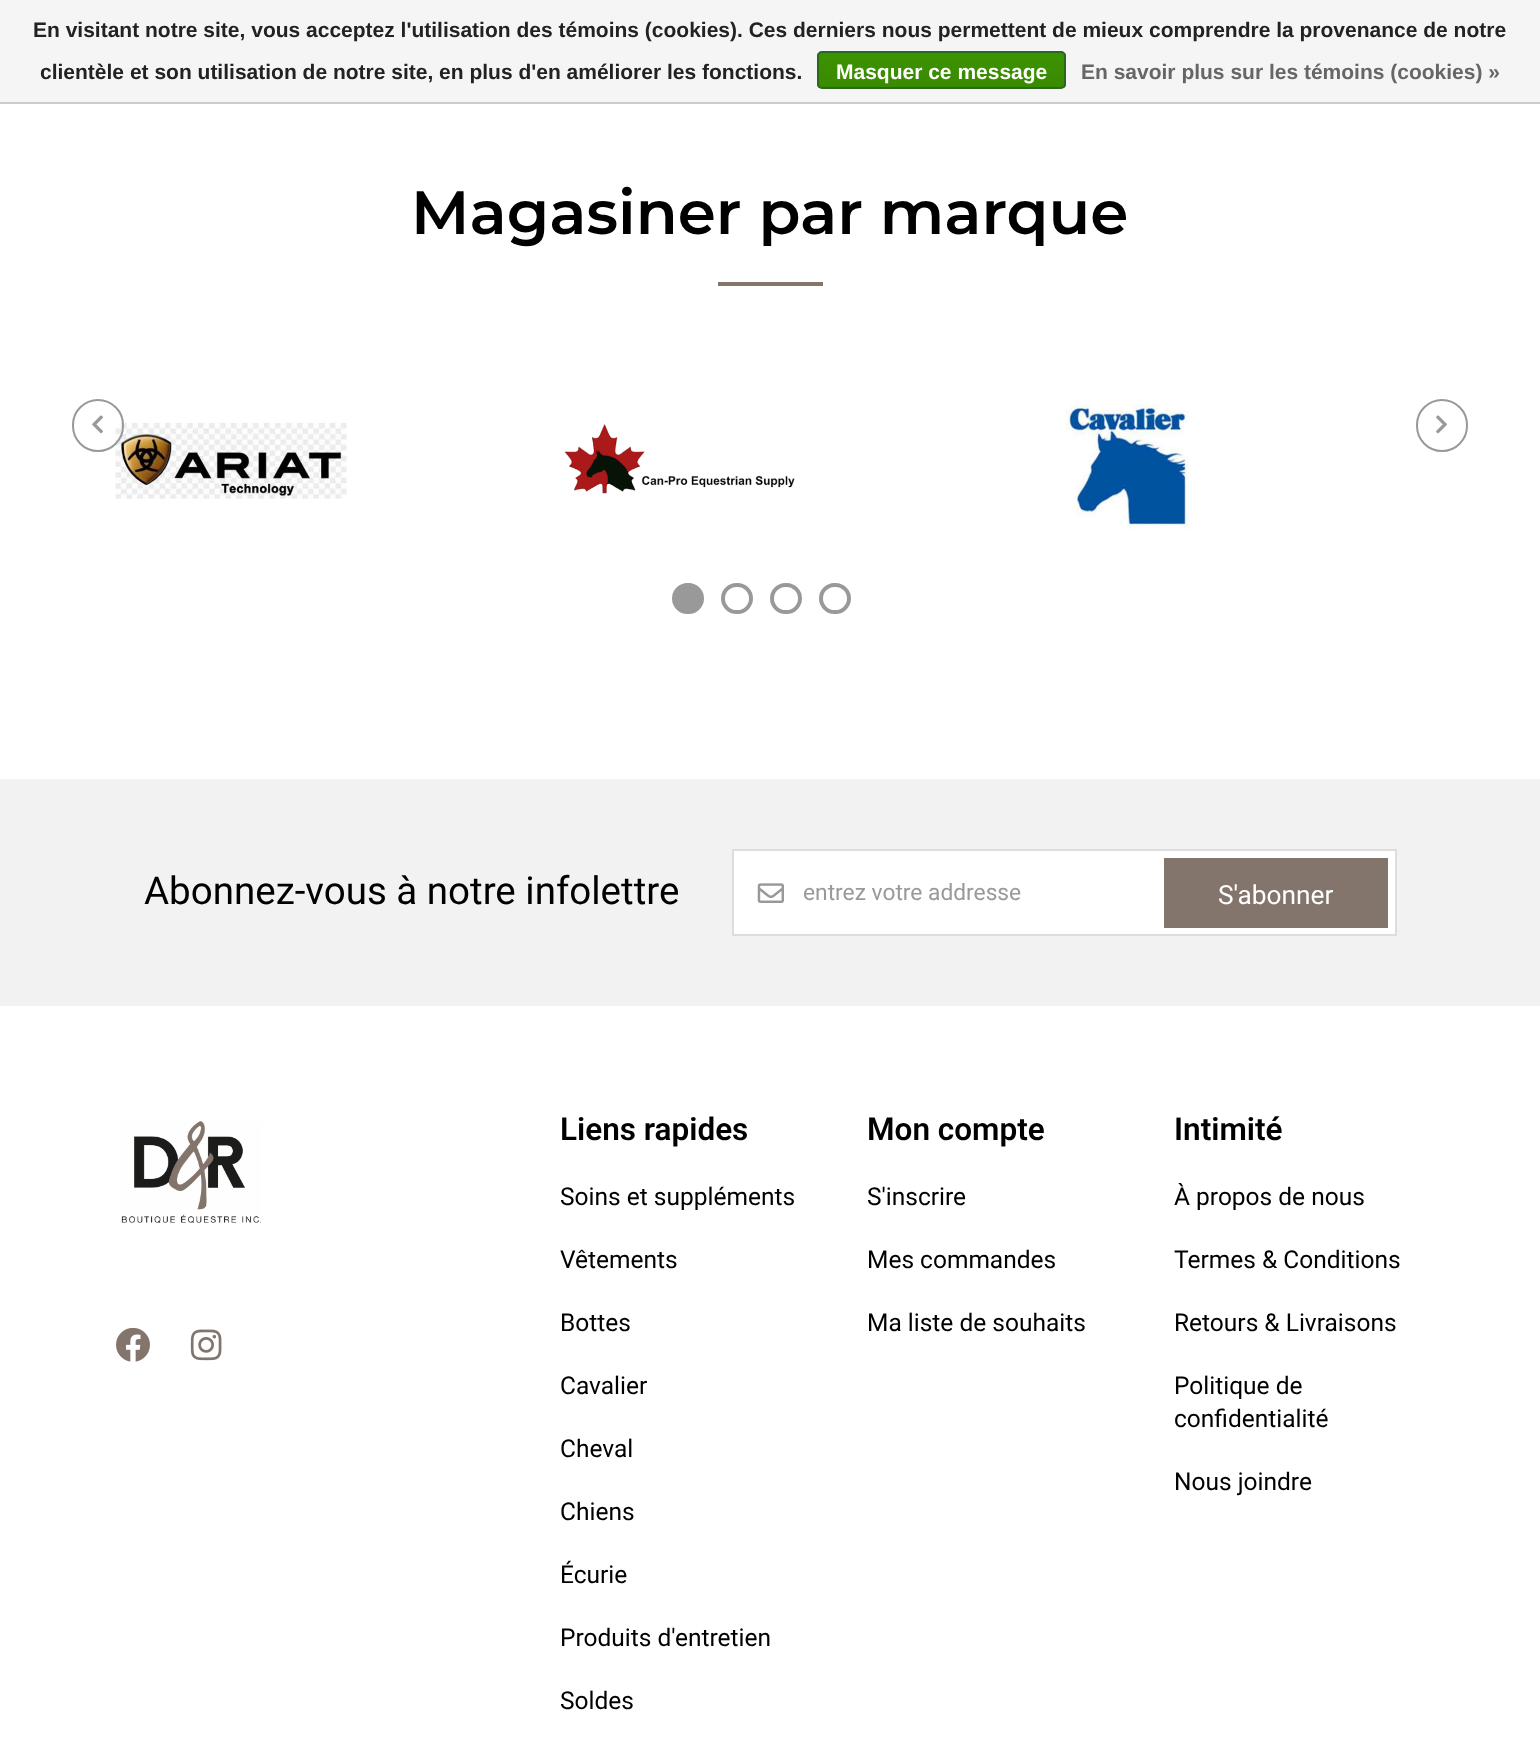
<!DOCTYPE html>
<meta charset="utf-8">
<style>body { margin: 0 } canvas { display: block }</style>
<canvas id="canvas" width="1540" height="1752"></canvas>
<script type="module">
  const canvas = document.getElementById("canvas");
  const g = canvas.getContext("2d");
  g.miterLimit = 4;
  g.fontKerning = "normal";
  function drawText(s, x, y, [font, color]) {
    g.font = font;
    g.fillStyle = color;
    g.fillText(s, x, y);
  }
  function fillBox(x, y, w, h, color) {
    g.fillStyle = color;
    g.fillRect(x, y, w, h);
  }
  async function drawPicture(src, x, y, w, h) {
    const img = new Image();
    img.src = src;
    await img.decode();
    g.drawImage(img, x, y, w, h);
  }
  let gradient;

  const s1 = ["bold 21px Liberation Sans", "#222222"];
  const s2 = ["bold 21px Liberation Sans", "#FFFFFF"];
  const s3 = ["bold 21px Liberation Sans", "#666666"];
  const s4 = ["600 61.25px Montserrat", "#000000"];
  const s5 = ["38.5px Roboto", "#000000"];
  const s6 = ["22.75px Roboto", "#999999"];
  const s7 = ["26.25px Roboto", "#FFFFFF"];
  const s8 = ["600 31.5px Roboto", "#000000"];
  const s9 = ["24.5px Roboto", "#000000"];

  fillBox(0, 0, 1540, 1752, "#FFFFFF");
  fillBox(0, 0, 1540, 102, "#F5F5F5");
  fillBox(0, 102, 1540, 2, "#CCCCCC");
  drawText("En visitant notre site, vous acceptez l'utilisation des témoins (cookies). Ces derniers nous permettent de mieux comprendre la provenance de notre", 33, 37, s1);
  drawText("clientèle et son utilisation de notre site, en plus d'en améliorer les fonctions.", 40, 79, s1);
  g.save();
  g.beginPath();
  g.roundRect(817, 51, 249, 38, 5);
  g.clip();
  gradient = g.createLinearGradient(942, 52, 942, 88);
  gradient.addColorStop(0, "#3C9300");
  gradient.addColorStop(1, "#398A00");
  g.fillStyle = gradient;
  g.fillRect(817, 53, 249, 35);
  g.restore();
  g.beginPath();
  g.roundRect(818, 52, 247, 36, 4);
  g.strokeStyle = "#29691D";
  g.lineWidth = 2;
  g.stroke();
  drawText("Masquer ce message", 836, 79, s2);
  drawText("En savoir plus sur les témoins (cookies) »", 1081, 79, s3);
  drawText("Magasiner par marque", 411, 234, s4);
  fillBox(718, 282, 105, 4, "#84756C");
  await drawPicture("pic3.png", 115, 422, 232, 77);
  g.beginPath();
  g.roundRect(73, 400, 50, 51, 25);
  g.strokeStyle = "#999999";
  g.stroke();
  await drawPicture("pic1.png", 92, 415, 11, 19);
  g.beginPath();
  g.roundRect(1417, 400, 50, 51, 25);
  g.stroke();
  await drawPicture("pic2.png", 1436, 415, 11, 19);
  await drawPicture("pic4.png", 564, 424, 231, 70);
  await drawPicture("pic5.png", 1065, 404, 124, 125);
  g.fillStyle = "#999999";
  g.beginPath();
  g.roundRect(674, 585, 28, 27, 13.5);
  g.fill();
  g.lineWidth = 4;
  g.stroke();
  g.beginPath();
  g.roundRect(723, 585, 28, 27, 13.5);
  g.stroke();
  g.beginPath();
  g.roundRect(772, 585, 28, 27, 13.5);
  g.stroke();
  g.beginPath();
  g.roundRect(821, 585, 28, 27, 13.5);
  g.stroke();
  fillBox(0, 779, 1540, 227, "#F2F2F2");
  drawText("Abonnez-vous à notre infolettre", 144, 904, s5);
  g.fillStyle = "#FFFFFF";
  g.beginPath();
  g.rect(733, 850, 663, 85);
  g.fill();
  g.strokeStyle = "#DDDDDD";
  g.lineWidth = 2;
  g.stroke();
  await drawPicture("pic6.png", 757, 883, 27, 20);
  drawText("entrez votre addresse", 803, 900, s6);
  fillBox(1164, 858, 224, 70, "#84756C");
  drawText("S'abonner", 1218, 904, s7);
  await drawPicture("pic7.png", 121, 1121, 140, 102);
  await drawPicture("pic8.png", 116, 1327, 34, 35);
  await drawPicture("pic9.png", 190, 1329, 32, 32);
  drawText("Liens rapides", 560, 1140, s8);
  drawText("Soins et suppléments", 560, 1205, s9);
  drawText("Vêtements", 560, 1268, s9);
  drawText("Bottes", 560, 1331, s9);
  drawText("Cavalier", 560, 1394, s9);
  drawText("Cheval", 560, 1457, s9);
  drawText("Chiens", 560, 1520, s9);
  drawText("Écurie", 560, 1583, s9);
  drawText("Produits d'entretien", 560, 1646, s9);
  drawText("Soldes", 560, 1709, s9);
  drawText("Mon compte", 867, 1140, s8);
  drawText("S'inscrire", 867, 1205, s9);
  drawText("Mes commandes", 867, 1268, s9);
  drawText("Ma liste de souhaits", 867, 1331, s9);
  drawText("Intimité", 1174, 1140, s8);
  drawText("À propos de nous", 1174, 1205, s9);
  drawText("Termes & Conditions", 1174, 1268, s9);
  drawText("Retours & Livraisons", 1174, 1331, s9);
  drawText("Politique de", 1174, 1394, s9);
  drawText("confidentialité", 1174, 1427, s9);
  drawText("Nous joindre", 1174, 1490, s9);
</script>
